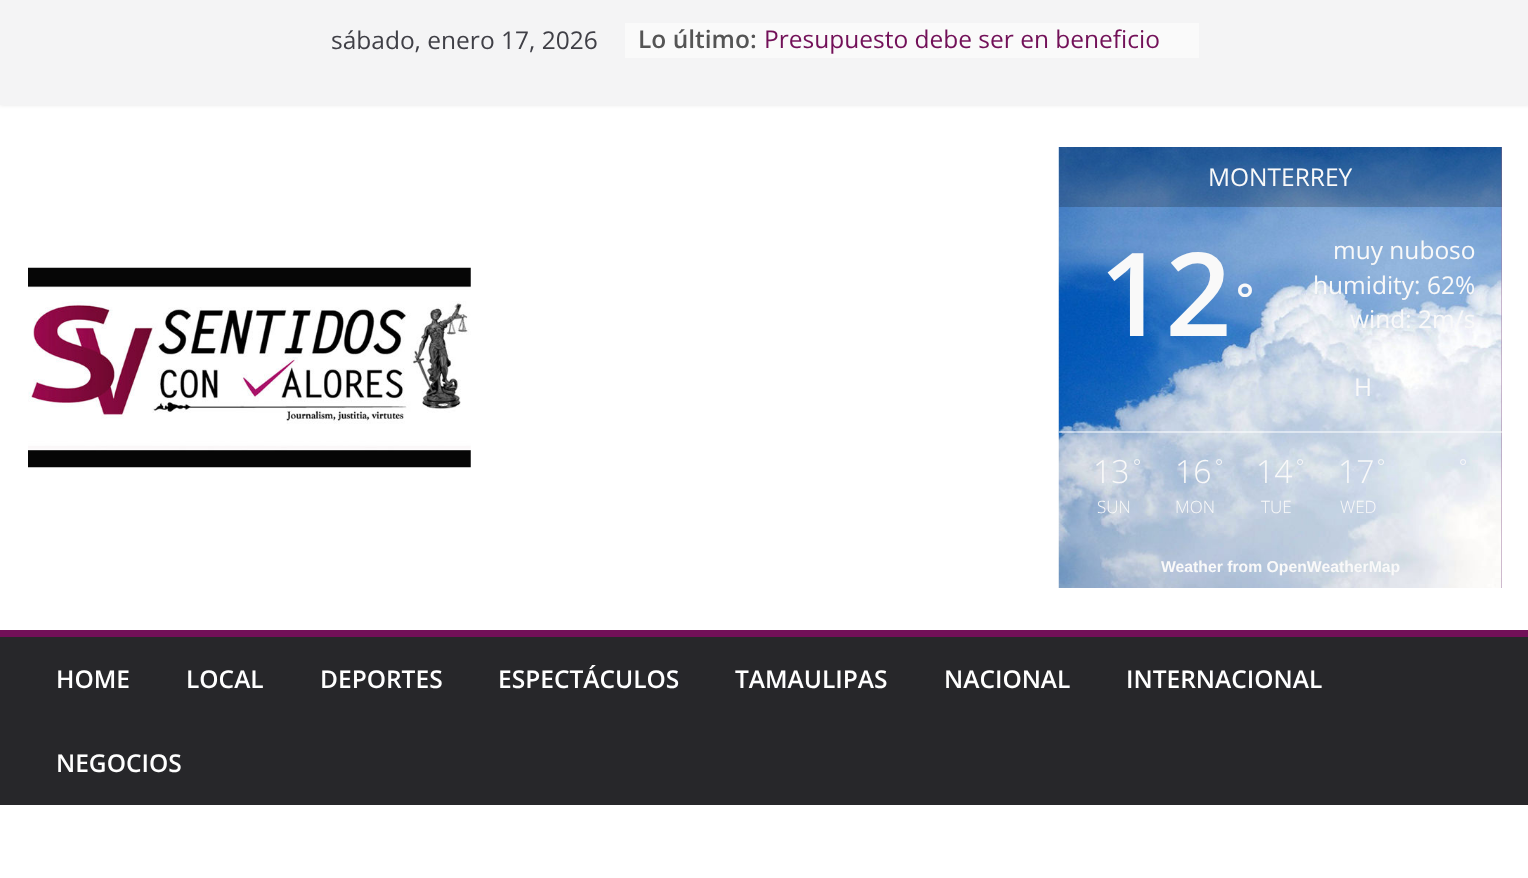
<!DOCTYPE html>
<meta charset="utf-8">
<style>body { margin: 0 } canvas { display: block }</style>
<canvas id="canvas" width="1528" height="878"></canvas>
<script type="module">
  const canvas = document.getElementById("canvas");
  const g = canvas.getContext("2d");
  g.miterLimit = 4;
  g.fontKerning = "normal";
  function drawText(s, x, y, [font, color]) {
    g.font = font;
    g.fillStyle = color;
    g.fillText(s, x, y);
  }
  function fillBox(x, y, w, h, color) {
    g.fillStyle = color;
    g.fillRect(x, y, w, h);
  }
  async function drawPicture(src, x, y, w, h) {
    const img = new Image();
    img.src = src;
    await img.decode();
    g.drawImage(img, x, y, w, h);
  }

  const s1 = ["24.5px Open Sans", "#3F3F46"];
  const s2 = ["600 24.5px Open Sans", "#555555"];
  const s3 = ["24.5px Open Sans", "#721058"];
  const s4 = ["24.5px Open Sans", "#F9F9F9"];
  const s5 = ["600 116px Open Sans", "#F9F9F9"];
  const s6 = ["600 42px Open Sans", "#F9F9F9"];
  const s7 = ["300 32px Open Sans", "#F9F9F9"];
  const s8 = ["300 19px Open Sans", "#F9F9F9"];
  const s9 = ["300 17px Open Sans", "#F9F9F9"];
  const s10 = ["bold 15.75px Liberation Sans", "#F9F9F9"];
  const s11 = ["600 24.5px Open Sans", "#FFFFFF"];

  fillBox(0, 0, 1528, 878, "#FFFFFF");
  g.fillStyle = "rgba(0, 0, 0, 0.1)";
  g.filter = "blur(2px)";
  g.beginPath();
  g.rect(0, 0, 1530, 105);
  g.fill();
  g.filter = "none";
  fillBox(0, 0, 1528, 105, "#F4F4F5");
  drawText("sábado, enero 17, 2026", 331, 49, s1);
  fillBox(625, 23, 574, 35, "#FAFAFA");
  drawText("Lo último:", 638, 48, s2);
  drawText("Presupuesto debe ser en beneficio", 764, 48, s3);
  await drawPicture("pic1.png", 28, 267, 443, 201);
  fillBox(1501, 147, 1, 441, "#A178A3");
  await drawPicture("pic2.png", 1058, 147, 444, 441);
  fillBox(1059, 147, 443, 60, "rgba(0, 0, 0, 0.2)");
  drawText("MONTERREY", 1208, 186, s4);
  drawText("12", 1099, 336, s5);
  drawText("°", 1236, 314, s6);
  drawText("muy nuboso", 1333, 259, s4);
  drawText("humidity: 62%", 1313, 294, s4);
  drawText("wind: 2m/s", 1350, 328, s4);
  drawText("H", 1354, 396, s4);
  fillBox(1059, 431, 443, 2, "rgba(255, 255, 255, 0.5)");
  drawText("13", 1093, 483, s7);
  drawText("°", 1133, 473, s8);
  drawText("SUN", 1097, 513, s9);
  drawText("16", 1175, 483, s7);
  drawText("°", 1215, 473, s8);
  drawText("MON", 1175, 513, s9);
  drawText("14", 1256, 483, s7);
  drawText("°", 1296, 473, s8);
  drawText("TUE", 1261, 513, s9);
  drawText("17", 1338, 483, s7);
  drawText("°", 1377, 473, s8);
  drawText("WED", 1340, 513, s9);
  drawText("°", 1459, 473, s8);
  drawText("Weather from OpenWeatherMap", 1161, 572, s10);
  fillBox(0, 637, 1528, 168, "#27272A");
  fillBox(0, 630, 1528, 7, "#721058");
  drawText("HOME", 56, 688, s11);
  drawText("LOCAL", 186, 688, s11);
  drawText("DEPORTES", 320, 688, s11);
  drawText("ESPECTÁCULOS", 498, 688, s11);
  drawText("TAMAULIPAS", 735, 688, s11);
  drawText("NACIONAL", 944, 688, s11);
  drawText("INTERNACIONAL", 1126, 688, s11);
  drawText("NEGOCIOS", 56, 772, s11);
</script>
